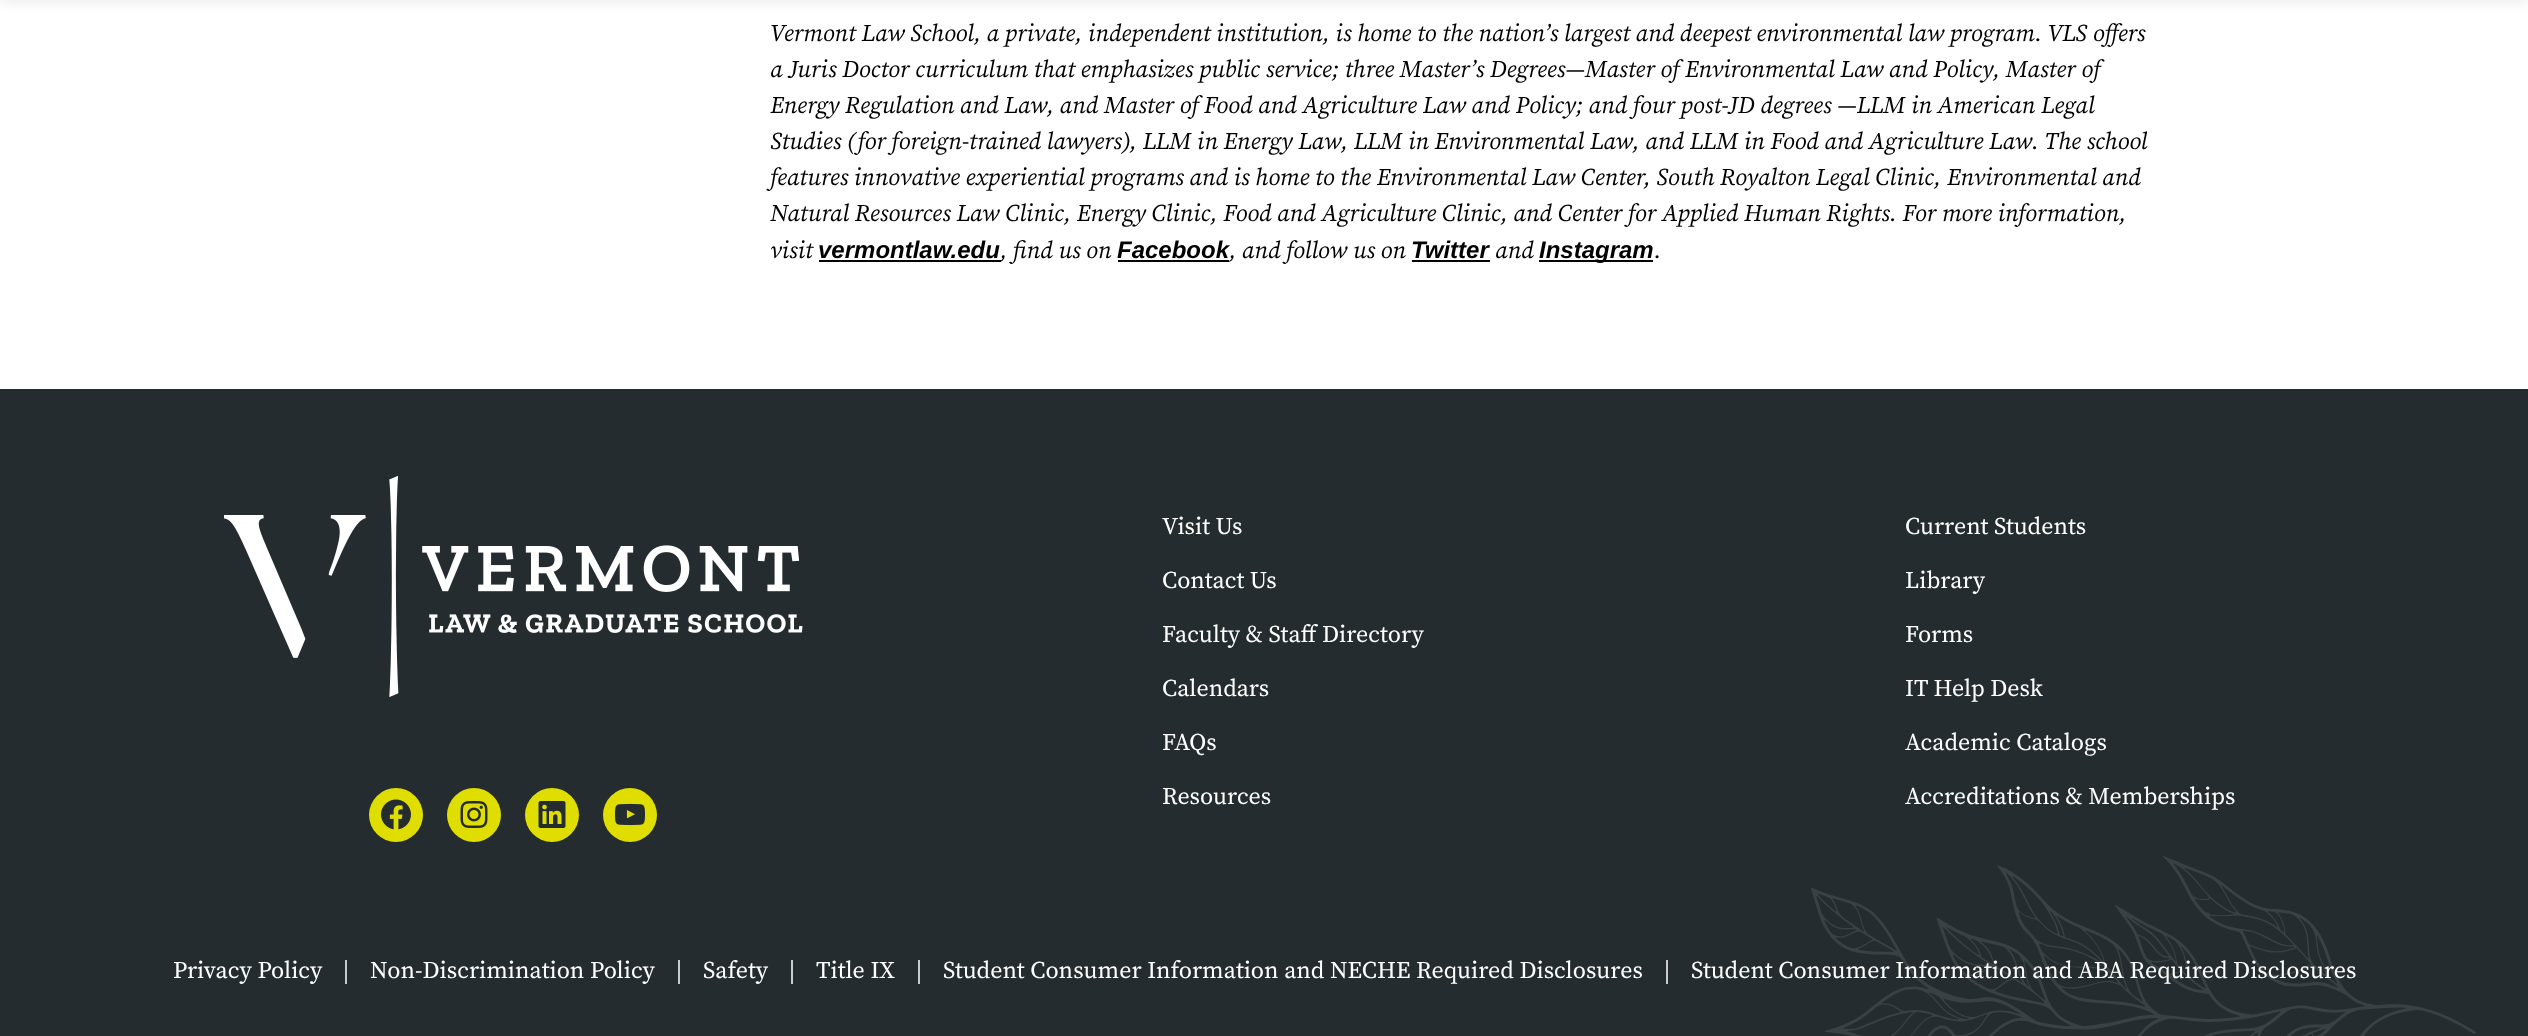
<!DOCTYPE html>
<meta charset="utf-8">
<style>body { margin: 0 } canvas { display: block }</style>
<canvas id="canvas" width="2528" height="1036"></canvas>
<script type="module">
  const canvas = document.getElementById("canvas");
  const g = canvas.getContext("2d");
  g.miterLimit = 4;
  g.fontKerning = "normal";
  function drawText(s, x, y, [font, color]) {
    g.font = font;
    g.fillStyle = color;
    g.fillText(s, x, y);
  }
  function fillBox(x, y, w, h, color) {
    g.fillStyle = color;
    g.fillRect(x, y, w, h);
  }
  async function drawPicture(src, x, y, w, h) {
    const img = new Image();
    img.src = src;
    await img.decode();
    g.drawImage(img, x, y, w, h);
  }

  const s1 = ["italic 24px Source Serif Pro", "#000000"];
  const s2 = ["italic bold 24px Liberation Sans", "#000000"];
  const s3 = ["24px Source Serif Pro", "#FFFFFF"];

  fillBox(0, 0, 2528, 1036, "#FFFFFF");
  g.fillStyle = "rgba(0, 0, 0, 0.1)";
  g.filter = "blur(7.5px)";
  g.beginPath();
  g.rect(0, -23, 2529, 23);
  g.fill();
  g.filter = "none";
  drawText("Vermont Law School, a private, independent institution, is home to the nation’s largest and deepest environmental law program. VLS offers", 770, 41, s1);
  drawText("a Juris Doctor curriculum that emphasizes public service; three Master’s Degrees—Master of Environmental Law and Policy, Master of", 770, 77, s1);
  drawText("Energy Regulation and Law, and Master of Food and Agriculture Law and Policy; and four post-JD degrees —LLM in American Legal", 770, 113, s1);
  drawText("Studies (for foreign-trained lawyers), LLM in Energy Law, LLM in Environmental Law, and LLM in Food and Agriculture Law. The school", 770, 149, s1);
  drawText("features innovative experiential programs and is home to the Environmental Law Center, South Royalton Legal Clinic, Environmental and", 770, 185, s1);
  drawText("Natural Resources Law Clinic, Energy Clinic, Food and Agriculture Clinic, and Center for Applied Human Rights. For more information,", 770, 221, s1);
  drawText("visit", 770, 258, s1);
  drawText("vermontlaw.edu", 818, 258, s2);
  fillBox(819, 260, 182, 2, "#000000");
  drawText(", find us on", 1000, 258, s1);
  drawText("Facebook", 1117, 258, s2);
  fillBox(1118, 260, 111, 2, "#000000");
  drawText(", and follow us on", 1229, 258, s1);
  drawText("Twitter", 1411, 258, s2);
  fillBox(1412, 260, 78, 2, "#000000");
  drawText("and", 1495, 258, s1);
  fillBox(1539, 260, 114, 2, "#000000");
  drawText("Instagram", 1539, 258, s2);
  drawText(".", 1654, 258, s1);
  fillBox(0, 389, 2528, 647, "#242C30");
  await drawPicture("pic1.png", 224, 476, 579, 221);
  drawText("Visit Us", 1162, 534, s3);
  drawText("Current Students", 1905, 534, s3);
  drawText("Contact Us", 1162, 588, s3);
  drawText("Library", 1905, 588, s3);
  drawText("Faculty & Staff Directory", 1162, 642, s3);
  drawText("Forms", 1905, 642, s3);
  drawText("Calendars", 1162, 696, s3);
  drawText("IT Help Desk", 1905, 696, s3);
  drawText("FAQs", 1162, 750, s3);
  drawText("Academic Catalogs", 1905, 750, s3);
  drawText("Resources", 1162, 804, s3);
  drawText("Accreditations & Memberships", 1905, 804, s3);
  g.fillStyle = "#E0DE00";
  g.beginPath();
  g.arc(396, 815, 27, 0, Math.PI * 2);
  g.fill();
  await drawPicture("pic2.png", 381, 799, 30, 31);
  g.beginPath();
  g.arc(474, 815, 27, 0, Math.PI * 2);
  g.fill();
  await drawPicture("pic3.png", 460, 801, 28, 27);
  g.beginPath();
  g.arc(552, 815, 27, 0, Math.PI * 2);
  g.fill();
  await drawPicture("pic4.png", 538, 801, 28, 27);
  g.beginPath();
  g.arc(630, 815, 27, 0, Math.PI * 2);
  g.fill();
  await drawPicture("pic5.png", 615, 803, 30, 23);
  await drawPicture("pic6.png", 1811, 856, 665, 180);
  drawText("Privacy Policy", 173, 978, s3);
  drawText("|", 343, 978, s3);
  drawText("Non-Discrimination Policy", 370, 978, s3);
  drawText("|", 676, 978, s3);
  drawText("Safety", 703, 978, s3);
  drawText("|", 789, 978, s3);
  drawText("Title IX", 816, 978, s3);
  drawText("|", 916, 978, s3);
  drawText("Student Consumer Information and NECHE Required Disclosures", 943, 978, s3);
  drawText("|", 1664, 978, s3);
  drawText("Student Consumer Information and ABA Required Disclosures", 1691, 978, s3);
</script>
